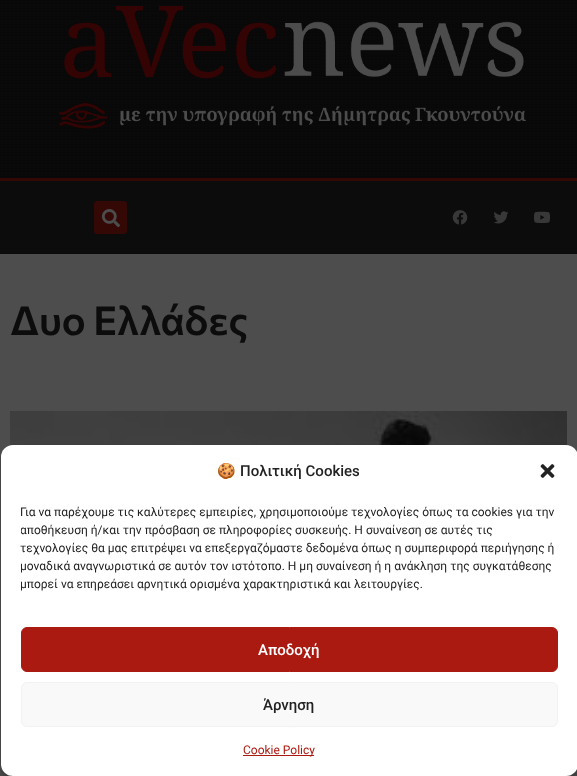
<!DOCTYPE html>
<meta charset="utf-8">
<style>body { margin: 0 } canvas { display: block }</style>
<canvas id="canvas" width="577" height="776"></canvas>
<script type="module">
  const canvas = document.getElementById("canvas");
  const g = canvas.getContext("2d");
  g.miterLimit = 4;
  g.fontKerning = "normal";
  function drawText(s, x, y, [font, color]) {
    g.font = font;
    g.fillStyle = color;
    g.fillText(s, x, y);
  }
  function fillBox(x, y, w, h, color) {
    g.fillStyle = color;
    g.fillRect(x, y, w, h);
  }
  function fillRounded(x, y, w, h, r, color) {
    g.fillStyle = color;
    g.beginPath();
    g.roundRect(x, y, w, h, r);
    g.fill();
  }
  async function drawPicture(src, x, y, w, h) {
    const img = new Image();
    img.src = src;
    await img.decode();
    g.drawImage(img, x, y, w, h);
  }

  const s1 = ["600 40px Commissioner", "#0C0C0C"];
  const s2 = ["15px Noto Color Emoji", "#222222"];
  const s3 = ["500 15px Roboto", "#222222"];
  const s4 = ["12px Roboto", "#222222"];
  const s5 = ["500 15px Roboto", "#FFFFFF"];
  const s6 = ["12px Roboto", "#AB1A11"];

  fillBox(0, 0, 577, 776, "#4D4D4D");
  await drawPicture("pic1.png", 0, 0, 577, 178);
  await drawPicture("pic2.png", 59, 6, 468, 123);
  fillBox(0, 181, 577, 73, "#0C0C0C");
  fillBox(0, 178, 577, 3, "#330805");
  fillRounded(94, 201, 33, 33, 3, "#330805");
  await drawPicture("pic3.png", 101, 209, 19, 19);
  await drawPicture("pic4.png", 452, 210, 16, 15);
  await drawPicture("pic5.png", 493, 211, 16, 13);
  await drawPicture("pic6.png", 534, 211, 16, 12);
  drawText("Δυο Ελλάδες", 10, 335, s1);
  await drawPicture("pic7.png", 10, 411, 557, 365);
  g.save();
  g.beginPath();
  g.moveTo(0, 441);
  g.lineTo(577, 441);
  g.lineTo(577, 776);
  g.lineTo(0, 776);
  g.closePath();
  g.moveTo(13, 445);
  g.lineTo(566, 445);
  g.bezierCurveTo(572.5, 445, 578, 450.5, 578, 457);
  g.lineTo(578, 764);
  g.bezierCurveTo(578, 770.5, 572.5, 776, 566, 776);
  g.lineTo(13, 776);
  g.bezierCurveTo(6.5, 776, 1, 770.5, 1, 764);
  g.lineTo(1, 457);
  g.bezierCurveTo(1, 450.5, 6.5, 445, 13, 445);
  g.closePath();
  g.clip("evenodd");
  g.fillStyle = "rgba(0, 0, 0, 0.23)";
  g.filter = "blur(3px)";
  g.beginPath();
  g.roundRect(1, 451, 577, 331, 12);
  g.fill();
  g.filter = "none";
  g.restore();
  fillRounded(1, 445, 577, 331, 12, "#FFFFFF");
  drawText("🍪", 217, 476, s2);
  drawText("Πολιτική Cookies", 240, 476, s3);
  await drawPicture("pic8.png", 540, 464, 15, 14);
  drawText("Για να παρέχουμε τις καλύτερες εμπειρίες, χρησιμοποιούμε τεχνολογίες όπως τα cookies για την", 20, 516, s4);
  g.save();
  g.beginPath();
  g.rect(21, 503, 537, 104);
  g.clip();
  drawText("αποθήκευση ή/και την πρόσβαση σε πληροφορίες συσκευής. Η συναίνεση σε αυτές τις", 20, 534, s4);
  g.restore();
  drawText("τεχνολογίες θα μας επιτρέψει να επεξεργαζόμαστε δεδομένα όπως η συμπεριφορά περιήγησης ή", 20, 552, s4);
  g.save();
  g.beginPath();
  g.rect(21, 503, 537, 104);
  g.clip();
  drawText("μοναδικά αναγνωριστικά σε αυτόν τον ιστότοπο. Η μη συναίνεση ή η ανάκληση της συγκατάθεσης", 20, 570, s4);
  drawText("μπορεί να επηρεάσει αρνητικά ορισμένα χαρακτηριστικά και λειτουργίες.", 20, 588, s4);
  g.restore();
  g.fillStyle = "#AB1A11";
  g.beginPath();
  g.roundRect(21.5, 627.5, 536, 44, 5.5);
  g.fill();
  g.strokeStyle = "#AB1A11";
  g.stroke();
  drawText("Αποδοχή", 258, 655, s5);
  g.fillStyle = "#F9F9F9";
  g.beginPath();
  g.roundRect(21.5, 682.5, 536, 44, 5.5);
  g.fill();
  g.strokeStyle = "#F2F2F2";
  g.stroke();
  drawText("Άρνηση", 263, 710, s3);
  fillBox(243, 755, 71, 1, "#AB1A11");
  drawText("Cookie Policy", 243, 754, s6);
</script>
